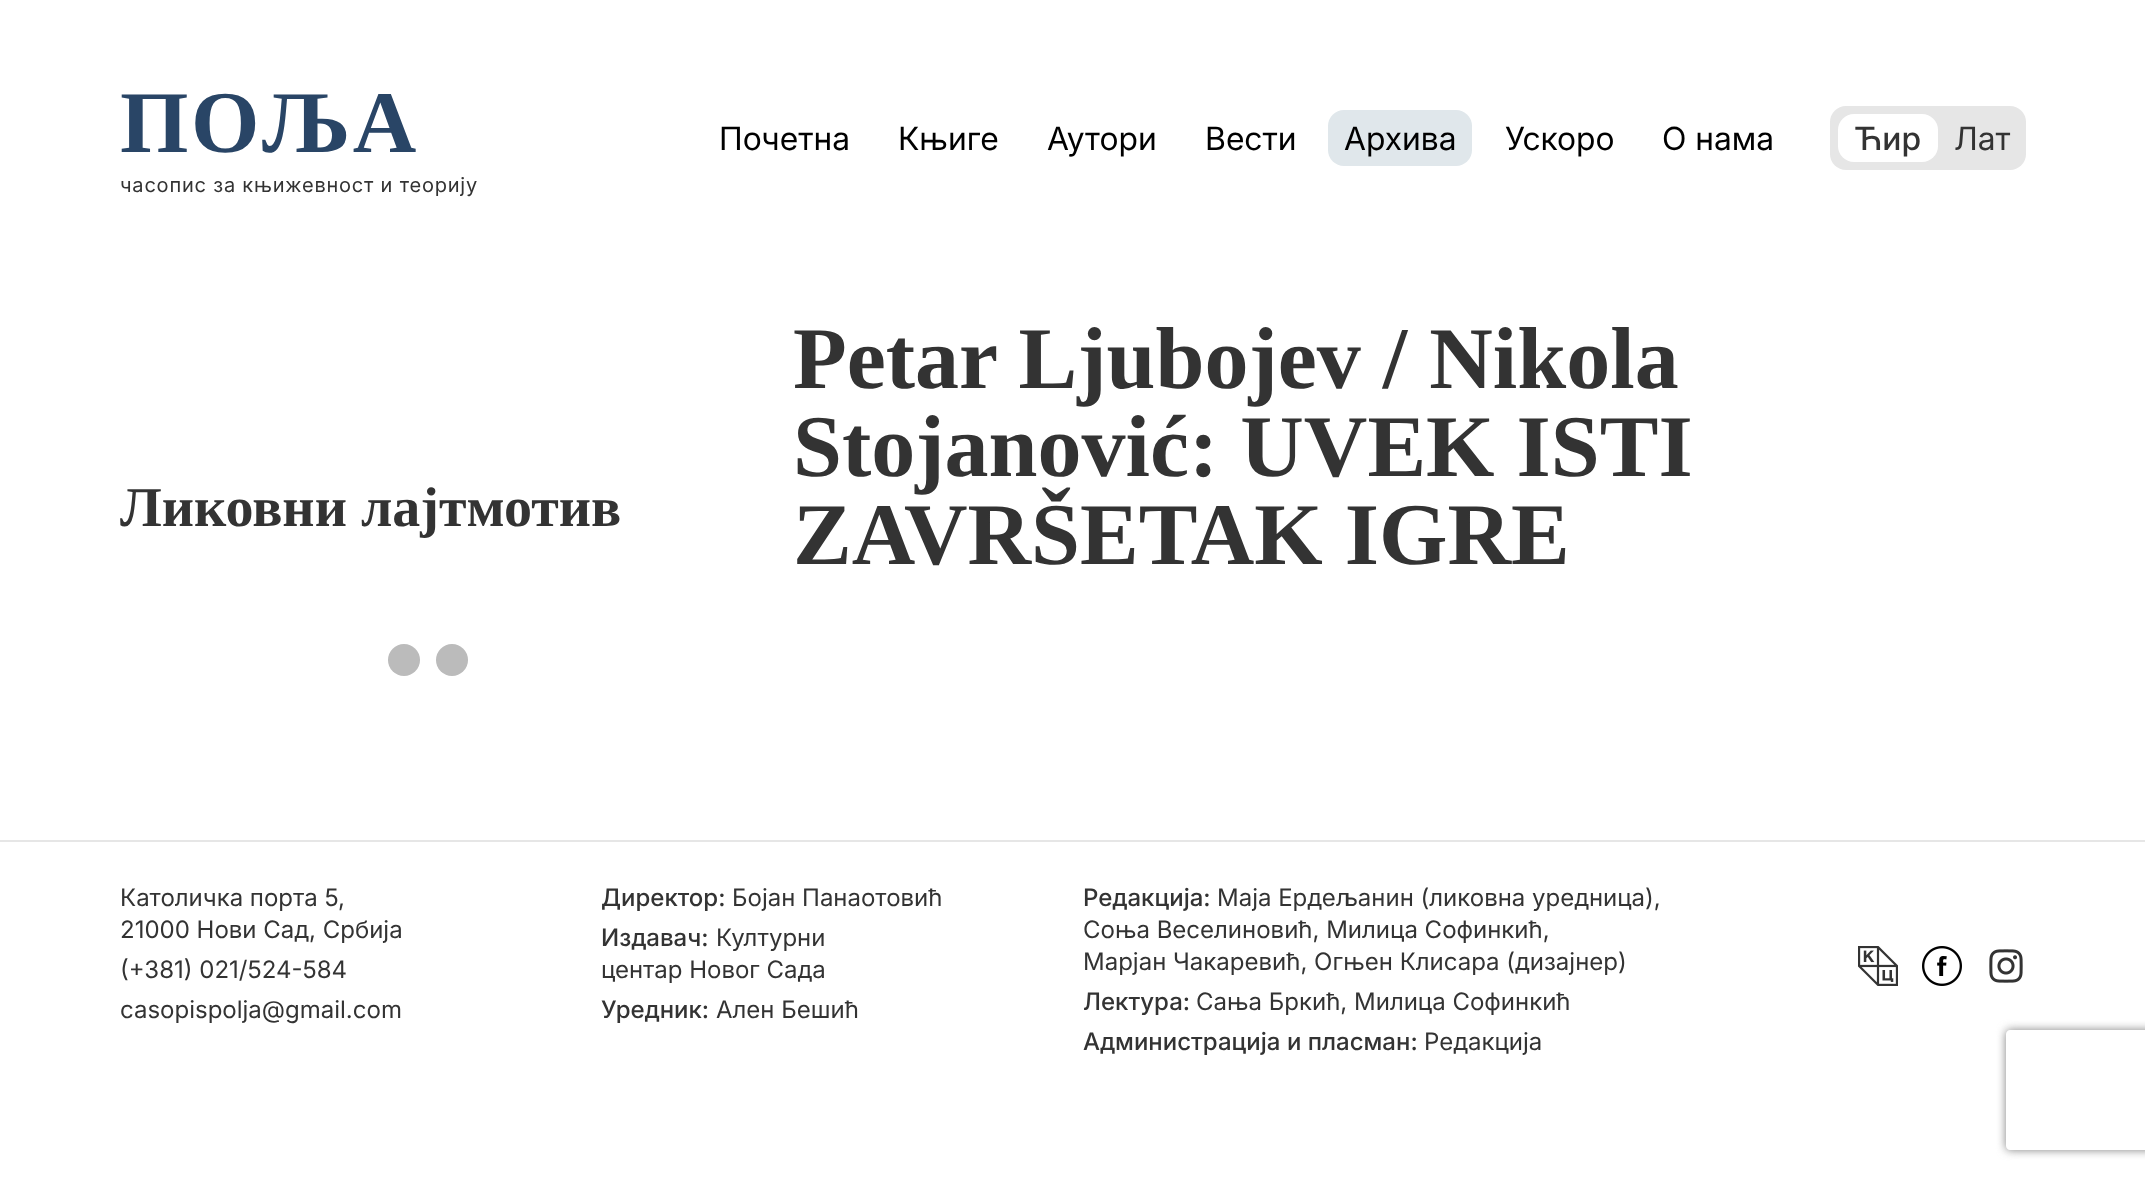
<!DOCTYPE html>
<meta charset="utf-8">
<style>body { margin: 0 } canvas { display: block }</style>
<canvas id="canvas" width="2145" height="1177"></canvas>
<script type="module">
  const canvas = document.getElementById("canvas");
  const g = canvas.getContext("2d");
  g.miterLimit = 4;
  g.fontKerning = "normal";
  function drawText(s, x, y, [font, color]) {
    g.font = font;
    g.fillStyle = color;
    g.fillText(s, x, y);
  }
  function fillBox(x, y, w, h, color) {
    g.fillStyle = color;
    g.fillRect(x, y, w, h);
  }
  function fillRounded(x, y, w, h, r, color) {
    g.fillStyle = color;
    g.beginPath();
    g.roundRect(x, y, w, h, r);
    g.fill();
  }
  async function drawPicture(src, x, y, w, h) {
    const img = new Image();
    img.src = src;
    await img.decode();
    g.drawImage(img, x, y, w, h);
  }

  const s1 = ["bold 88px Liberation Serif", "#294566"];
  const s2 = ["20px Inter", "#333333"];
  const s3 = ["32px 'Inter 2'", "#000000"];
  const s4 = ["500 32px 'Inter 2'", "#333333"];
  const s5 = ["32px 'Inter 2'", "#333333"];
  const s6 = ["bold 56px Liberation Serif", "#333333"];
  const s7 = ["bold 88px Liberation Serif", "#333333"];
  const s8 = ["24px Inter", "#333333"];
  const s9 = ["500 24px Inter", "#333333"];

  fillBox(0, 0, 2145, 1177, "#FFFFFF");
  g.letterSpacing = "2.5px";
  drawText("ПОЉА", 120, 152, s1);
  g.letterSpacing = "0.8px";
  drawText("часопис за књижевност и теорију", 120, 192, s2);
  g.letterSpacing = "0px";
  drawText("Почетна", 719, 150, s3);
  drawText("Књиге", 898, 150, s3);
  drawText("Аутори", 1047, 150, s3);
  drawText("Вести", 1205, 150, s3);
  fillRounded(1328, 110, 144, 56, 16, "#E0E7EB");
  drawText("Архива", 1344, 150, s3);
  drawText("Ускоро", 1505, 150, s3);
  drawText("О нама", 1662, 150, s3);
  fillRounded(1830, 106, 196, 64, 16, "#E6E6E6");
  fillRounded(1838, 114, 100, 48, 16, "#FFFFFF");
  drawText("Ћир", 1854, 150, s4);
  drawText("Лат", 1954, 150, s5);
  drawText("Ликовни лајтмотив", 120, 526, s6);
  g.fillStyle = "#BBBBBB";
  g.beginPath();
  g.arc(404, 660, 16, 0, Math.PI * 2);
  g.fill();
  g.beginPath();
  g.arc(452, 660, 16, 0, Math.PI * 2);
  g.fill();
  drawText("Petar Ljubojev / Nikola", 793, 388, s7);
  drawText("Stojanović: UVEK ISTI", 793, 476, s7);
  drawText("ZAVRŠETAK IGRE", 793, 564, s7);
  fillBox(0, 840, 2145, 2, "#E6E6E6");
  drawText("Католичка порта 5,", 120, 906, s8);
  drawText("21000 Нови Сад, Србија", 120, 938, s8);
  drawText("(+381) 021/524-584", 120, 978, s8);
  drawText("casopispolja@gmail.com", 120, 1018, s8);
  drawText("Директор:", 601, 906, s9);
  drawText("Бојан Панаотовић", 732, 906, s8);
  drawText("Издавач:", 601, 946, s9);
  drawText("Културни", 716, 946, s8);
  drawText("центар Новог Сада", 601, 978, s8);
  drawText("Уредник:", 601, 1018, s9);
  drawText("Ален Бешић", 716, 1018, s8);
  drawText("Редакција:", 1083, 906, s9);
  drawText("Маја Ердељанин (ликовна уредница),", 1217, 906, s8);
  drawText("Соња Веселиновић, Милица Софинкић,", 1083, 938, s8);
  drawText("Марјан Чакаревић, Огњен Клисара (дизајнер)", 1083, 970, s8);
  drawText("Лектура:", 1083, 1010, s9);
  drawText("Сања Бркић, Милица Софинкић", 1196, 1010, s8);
  drawText("Администрација и пласман:", 1083, 1050, s9);
  drawText("Редакција", 1424, 1050, s8);
  await drawPicture("pic1.png", 1858, 946, 40, 40);
  await drawPicture("pic2.png", 1922, 946, 40, 40);
  await drawPicture("pic3.png", 1989, 949, 34, 34);
  g.save();
  g.beginPath();
  g.moveTo(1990, 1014);
  g.lineTo(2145, 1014);
  g.lineTo(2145, 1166);
  g.lineTo(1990, 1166);
  g.closePath();
  g.moveTo(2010, 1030);
  g.lineTo(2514, 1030);
  g.bezierCurveTo(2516, 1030, 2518, 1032, 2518, 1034);
  g.lineTo(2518, 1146);
  g.bezierCurveTo(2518, 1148, 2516, 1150, 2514, 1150);
  g.lineTo(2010, 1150);
  g.bezierCurveTo(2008, 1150, 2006, 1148, 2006, 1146);
  g.lineTo(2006, 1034);
  g.bezierCurveTo(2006, 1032, 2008, 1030, 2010, 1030);
  g.closePath();
  g.clip("evenodd");
  g.fillStyle = "#808080";
  g.filter = "blur(5px)";
  g.beginPath();
  g.roundRect(2006, 1030, 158, 120, 4);
  g.fill();
  g.filter = "none";
  g.restore();
</script>
